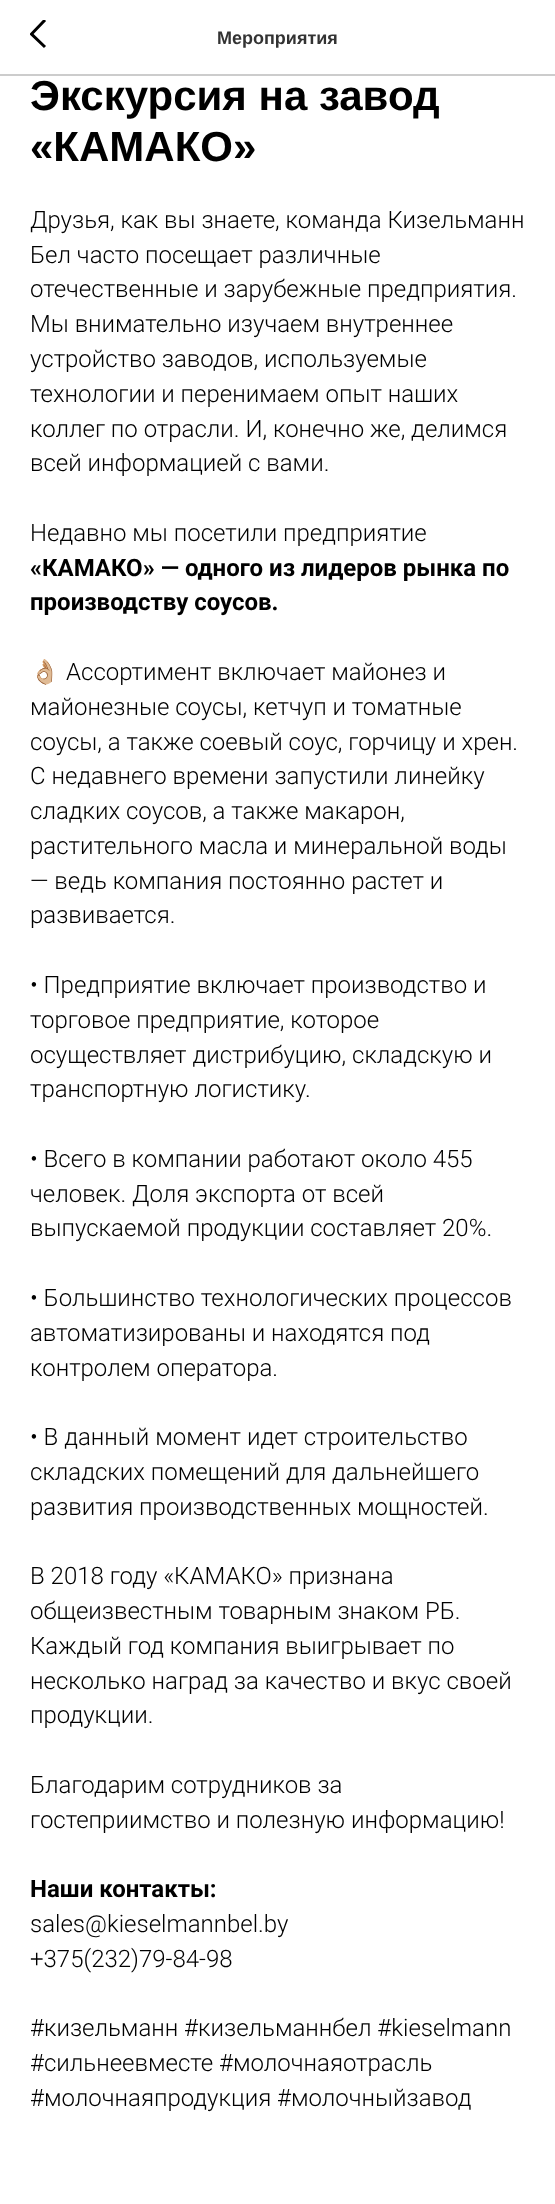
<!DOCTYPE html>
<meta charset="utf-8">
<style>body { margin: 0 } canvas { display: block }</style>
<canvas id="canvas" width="555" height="2204"></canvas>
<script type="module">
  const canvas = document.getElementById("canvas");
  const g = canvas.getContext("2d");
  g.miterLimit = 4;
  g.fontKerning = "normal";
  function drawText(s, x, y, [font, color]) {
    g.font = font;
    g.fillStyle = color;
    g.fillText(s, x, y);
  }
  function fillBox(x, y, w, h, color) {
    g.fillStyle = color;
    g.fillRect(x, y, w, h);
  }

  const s1 = ["bold 18px Liberation Sans", "#333333"];
  const s2 = ["bold 42px Liberation Sans", "#000000"];
  const s3 = ["300 24px Roboto", "#000000"];
  const s4 = ["bold 24px Roboto", "#000000"];
  const s5 = ["bold 24px Noto Color Emoji", "#000000"];

  fillBox(0, 0, 555, 2204, "#FFFFFF");
  fillBox(0, 74, 555, 2, "#CCCCCC");
  g.save();
  g.beginPath();
  g.rect(30, 20, 17, 30);
  g.clip();
  g.beginPath();
  g.moveTo(45, 47);
  g.lineTo(31.5, 34);
  g.lineTo(45, 20);
  g.strokeStyle = "#000000";
  g.lineWidth = 3;
  g.stroke();
  g.restore();
  drawText("Мероприятия", 217, 44, s1);
  drawText("Экскурсия на завод", 30, 110, s2);
  drawText("«КАМАКО»", 30, 161, s2);
  drawText("Друзья, как вы знаете, команда Кизельманн", 30, 228, s3);
  drawText("Бел часто посещает различные", 30, 263, s3);
  drawText("отечественные и зарубежные предприятия.", 30, 297, s3);
  drawText("Мы внимательно изучаем внутреннее", 30, 332, s3);
  drawText("устройство заводов, используемые", 30, 367, s3);
  drawText("технологии и перенимаем опыт наших", 30, 402, s3);
  drawText("коллег по отрасли. И, конечно же, делимся", 30, 437, s3);
  drawText("всей информацией с вами.", 30, 471, s3);
  drawText("Недавно мы посетили предприятие", 30, 541, s3);
  drawText("«КАМАКО» ― одного из лидеров рынка по", 30, 576, s4);
  drawText("производству соусов.", 30, 610, s4);
  drawText("👌🏼", 30, 680, s5);
  drawText("Ассортимент включает майонез и", 66, 680, s3);
  drawText("майонезные соусы, кетчуп и томатные", 30, 715, s3);
  drawText("соусы, а также соевый соус, горчицу и хрен.", 30, 750, s3);
  drawText("С недавнего времени запустили линейку", 30, 784, s3);
  drawText("сладких соусов, а также макарон,", 30, 819, s3);
  drawText("растительного масла и минеральной воды", 30, 854, s3);
  drawText("― ведь компания постоянно растет и", 30, 889, s3);
  drawText("развивается.", 30, 923, s3);
  drawText("• Предприятие включает производство и", 30, 993, s3);
  drawText("торговое предприятие, которое", 30, 1028, s3);
  drawText("осуществляет дистрибуцию, складскую и", 30, 1063, s3);
  drawText("транспортную логистику.", 30, 1097, s3);
  drawText("• Всего в компании работают около 455", 30, 1167, s3);
  drawText("человек. Доля экспорта от всей", 30, 1202, s3);
  drawText("выпускаемой продукции составляет 20%.", 30, 1236, s3);
  drawText("• Большинство технологических процессов", 30, 1306, s3);
  drawText("автоматизированы и находятся под", 30, 1341, s3);
  drawText("контролем оператора.", 30, 1376, s3);
  drawText("• В данный момент идет строительство", 30, 1445, s3);
  drawText("складских помещений для дальнейшего", 30, 1480, s3);
  drawText("развития производственных мощностей.", 30, 1515, s3);
  drawText("В 2018 году «КАМАКО» признана", 30, 1584, s3);
  drawText("общеизвестным товарным знаком РБ.", 30, 1619, s3);
  drawText("Каждый год компания выигрывает по", 30, 1654, s3);
  drawText("несколько наград за качество и вкус своей", 30, 1689, s3);
  drawText("продукции.", 30, 1723, s3);
  drawText("Благодарим сотрудников за", 30, 1793, s3);
  drawText("гостеприимство и полезную информацию!", 30, 1828, s3);
  drawText("Наши контакты:", 30, 1897, s4);
  drawText("sales@kieselmannbel.by", 30, 1932, s3);
  drawText("+375(232)79-84-98", 30, 1967, s3);
  drawText("#кизельманн #кизельманнбел #kieselmann", 30, 2036, s3);
  drawText("#сильнеевместе #молочнаяотрасль", 30, 2071, s3);
  drawText("#молочнаяпродукция #молочныйзавод", 30, 2106, s3);
</script>
